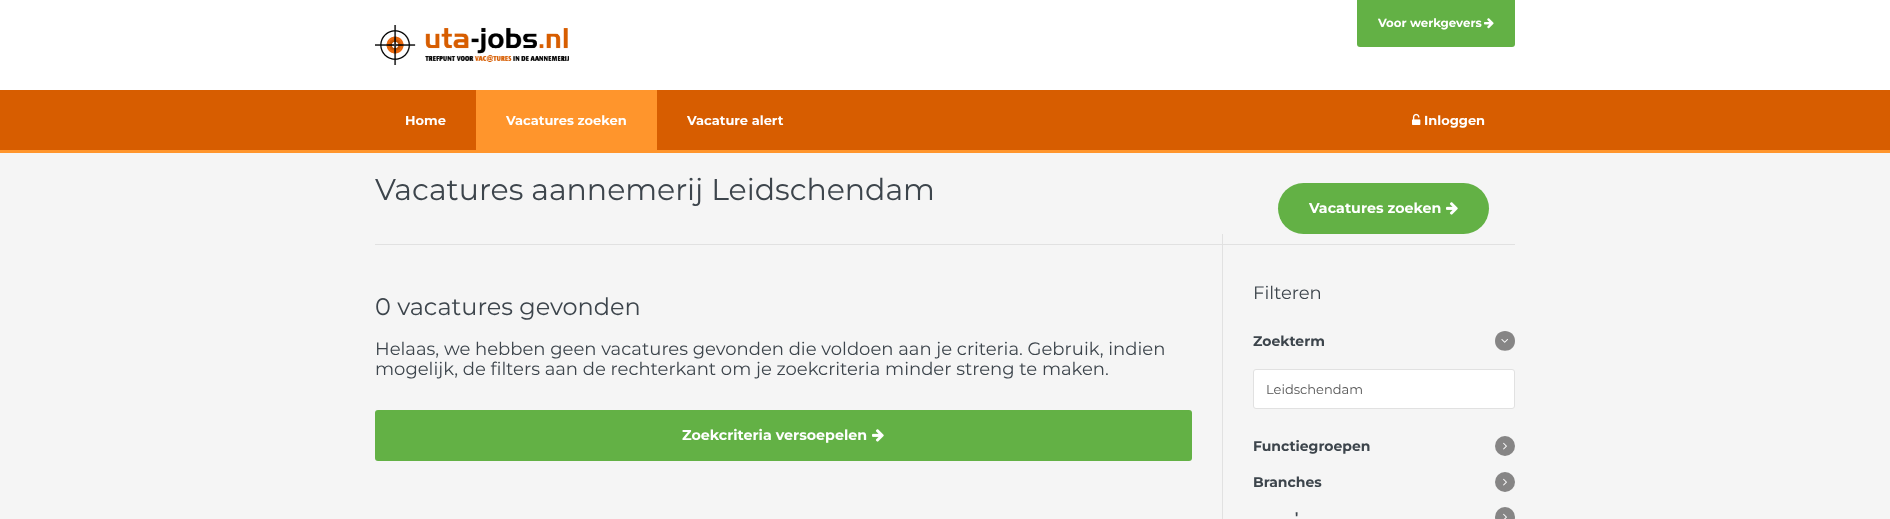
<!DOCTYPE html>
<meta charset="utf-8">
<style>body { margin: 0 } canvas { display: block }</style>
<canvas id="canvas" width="1890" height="519"></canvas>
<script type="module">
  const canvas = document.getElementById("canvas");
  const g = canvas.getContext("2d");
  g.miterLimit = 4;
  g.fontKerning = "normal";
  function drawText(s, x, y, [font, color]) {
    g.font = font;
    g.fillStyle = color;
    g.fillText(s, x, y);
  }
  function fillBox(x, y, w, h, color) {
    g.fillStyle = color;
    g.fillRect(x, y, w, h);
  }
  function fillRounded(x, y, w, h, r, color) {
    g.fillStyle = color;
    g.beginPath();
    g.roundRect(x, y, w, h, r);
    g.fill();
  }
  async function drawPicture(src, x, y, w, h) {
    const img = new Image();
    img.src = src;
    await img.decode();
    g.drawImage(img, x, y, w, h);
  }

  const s1 = ["bold 11.75px Montserrat", "#FFFFFF"];
  const s2 = ["bold 13px Montserrat", "#FFFFFF"];
  const s3 = ["30px Montserrat", "#3D454C"];
  const s4 = ["bold 14.25px Montserrat", "#FFFFFF"];
  const s5 = ["24px Montserrat", "#3D454C"];
  const s6 = ["18px Montserrat", "#3D454C"];
  const s7 = ["bold 14px Montserrat", "#3D454C"];
  const s8 = ["13px Montserrat", "#555555"];

  fillBox(0, 0, 1890, 519, "#D75D00");
  fillBox(0, 0, 1890, 90, "#FFFFFF");
  await drawPicture("pic1.png", 375, 25, 194, 40);
  g.fillStyle = "#63B145";
  g.beginPath();
  g.roundRect(1357, 0, 158, 47, [0, 0, 3, 3]);
  g.fill();
  drawText("Voor werkgevers", 1378, 27, s1);
  await drawPicture("pic2.png", 1484, 18, 10, 11);
  fillBox(0, 150, 1890, 3, "#FF952C");
  drawText("Home", 405, 125, s2);
  fillBox(476, 90, 181, 60, "#FF952C");
  drawText("Vacatures zoeken", 506, 125, s2);
  drawText("Vacature alert", 687, 125, s2);
  await drawPicture("pic3.png", 1412, 113, 9, 12);
  drawText("Inloggen", 1424, 125, s2);
  fillBox(0, 153, 1890, 366, "#F5F5F5");
  drawText("Vacatures aannemerij Leidschendam", 375, 200, s3);
  fillRounded(1278, 183, 211, 51, 25.5, "#63B145");
  drawText("Vacatures zoeken", 1309, 213, s4);
  await drawPicture("pic4.png", 1446, 202, 12, 13);
  fillBox(375, 244, 1140, 1, "#E1E1E1");
  fillBox(1222, 234, 1, 285, "#E1E1E1");
  drawText("0 vacatures gevonden", 375, 315, s5);
  drawText("Helaas, we hebben geen vacatures gevonden die voldoen aan je criteria. Gebruik, indien", 375, 355, s6);
  drawText("mogelijk, de filters aan de rechterkant om je zoekcriteria minder streng te maken.", 375, 375, s6);
  fillRounded(375, 410, 817, 51, 3, "#63B145");
  drawText("Zoekcriteria versoepelen", 682, 440, s4);
  await drawPicture("pic4.png", 872, 429, 12, 13);
  drawText("Filteren", 1253, 299, s6);
  drawText("Zoekterm", 1253, 346, s7);
  g.fillStyle = "#868585";
  g.beginPath();
  g.moveTo(1515, 341);
  g.bezierCurveTo(1515, 354, 1495, 354, 1495, 341);
  g.bezierCurveTo(1495, 327.5, 1515, 327.5, 1515, 341);
  g.closePath();
  g.fill();
  await drawPicture("pic5.png", 1501, 339, 7, 4);
  g.fillStyle = "#FFFFFF";
  g.beginPath();
  g.roundRect(1253.5, 369.5, 261, 39, 2.5);
  g.fill();
  g.strokeStyle = "#E1E1E1";
  g.stroke();
  drawText("Leidschendam", 1266, 394, s8);
  drawText("Functiegroepen", 1253, 451, s7);
  g.fillStyle = "#868585";
  g.beginPath();
  g.arc(1505, 446, 10, 0, Math.PI * 2);
  g.fill();
  await drawPicture("pic6.png", 1503, 442, 4, 8);
  drawText("Branches", 1253, 487, s7);
  g.fillStyle = "#868585";
  g.beginPath();
  g.arc(1505, 482, 10, 0, Math.PI * 2);
  g.fill();
  await drawPicture("pic6.png", 1503, 478, 4, 8);
  drawText("'", 1295, 522, s7);
  g.fillStyle = "#868585";
  g.beginPath();
  g.arc(1505, 517, 10, 0, Math.PI * 2);
  g.fill();
  await drawPicture("pic7.png", 1503, 513, 4, 6);
</script>
